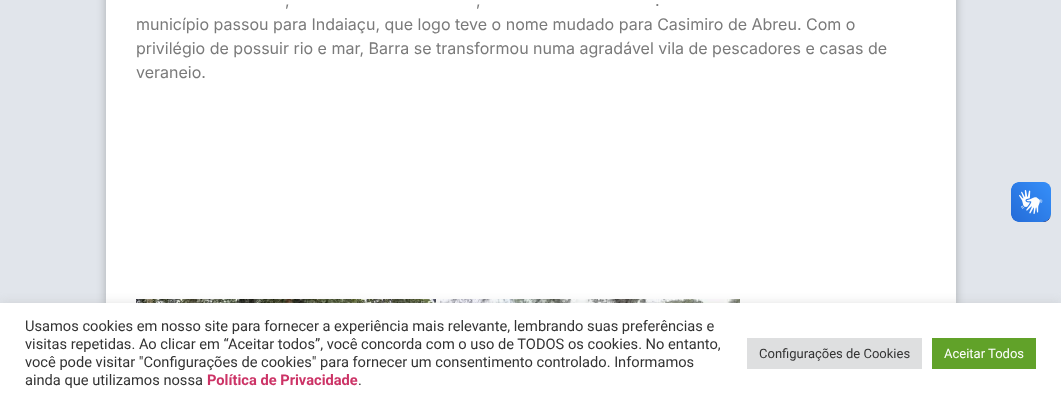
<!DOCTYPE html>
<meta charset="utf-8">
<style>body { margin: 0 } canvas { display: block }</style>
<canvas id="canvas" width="1061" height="403"></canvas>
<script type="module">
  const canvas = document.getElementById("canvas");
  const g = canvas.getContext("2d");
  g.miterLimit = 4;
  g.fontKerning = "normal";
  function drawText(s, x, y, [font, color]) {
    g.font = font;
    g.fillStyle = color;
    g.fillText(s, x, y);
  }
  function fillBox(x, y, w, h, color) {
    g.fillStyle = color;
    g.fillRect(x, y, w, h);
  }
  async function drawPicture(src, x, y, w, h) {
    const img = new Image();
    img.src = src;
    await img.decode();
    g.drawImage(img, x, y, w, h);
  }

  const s1 = ["16px Inter", "#7A7A7A"];
  const s2 = ["14.65px Roboto", "#333333"];
  const s3 = ["bold 14.65px Roboto", "#CC3366"];
  const s4 = ["13px Roboto", "#333333"];
  const s5 = ["13px Roboto", "#FFFFFF"];

  fillBox(0, 0, 1061, 403, "#E1E5EB");
  g.fillStyle = "rgba(0, 0, 0, 0.25)";
  g.filter = "blur(5px)";
  g.beginPath();
  g.roundRect(106, -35, 850, 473, 20);
  g.fill();
  g.filter = "none";
  fillBox(106, 0, 850, 303, "#FFFFFF");
  drawText(",", 285, 6, s1);
  drawText(",", 476, 6, s1);
  drawText(".", 655, 6, s1);
  drawText("município passou para Indaiaçu, que logo teve o nome mudado para Casimiro de Abreu. Com o", 136, 30, s1);
  drawText("privilégio de possuir rio e mar, Barra se transformou numa agradável vila de pescadores e casas de", 136, 54, s1);
  drawText("veraneio.", 136, 78, s1);
  await drawPicture("pic1.png", 136, 299, 300, 4);
  await drawPicture("pic2.png", 440, 299, 300, 4);
  await drawPicture("pic3.png", 1011, 182, 40, 40);
  await drawPicture("pic4.png", 1011, 182, 40, 40);
  g.fillStyle = "rgba(172, 171, 171, 0.3)";
  g.filter = "blur(5px)";
  g.beginPath();
  g.rect(0, 302, 1061, 100);
  g.fill();
  g.filter = "none";
  fillBox(0, 303, 1061, 100, "#FFFFFF");
  drawText("Usamos cookies em nosso site para fornecer a experiência mais relevante, lembrando suas preferências e", 25, 331, s2);
  drawText("visitas repetidas. Ao clicar em “Aceitar todos”, você concorda com o uso de TODOS os cookies. No entanto,", 25, 349, s2);
  drawText("você pode visitar \"Configurações de cookies\" para fornecer um consentimento controlado. Informamos", 25, 367, s2);
  drawText("ainda que utilizamos nossa", 25, 385, s2);
  drawText("Política de Privacidade", 207, 385, s3);
  drawText(".", 358, 385, s2);
  fillBox(747, 338, 175, 31, "#DEDFE0");
  drawText("Configurações de Cookies", 759, 358, s4);
  fillBox(932, 338, 104, 31, "#61A229");
  drawText("Aceitar Todos", 944, 358, s5);
</script>
